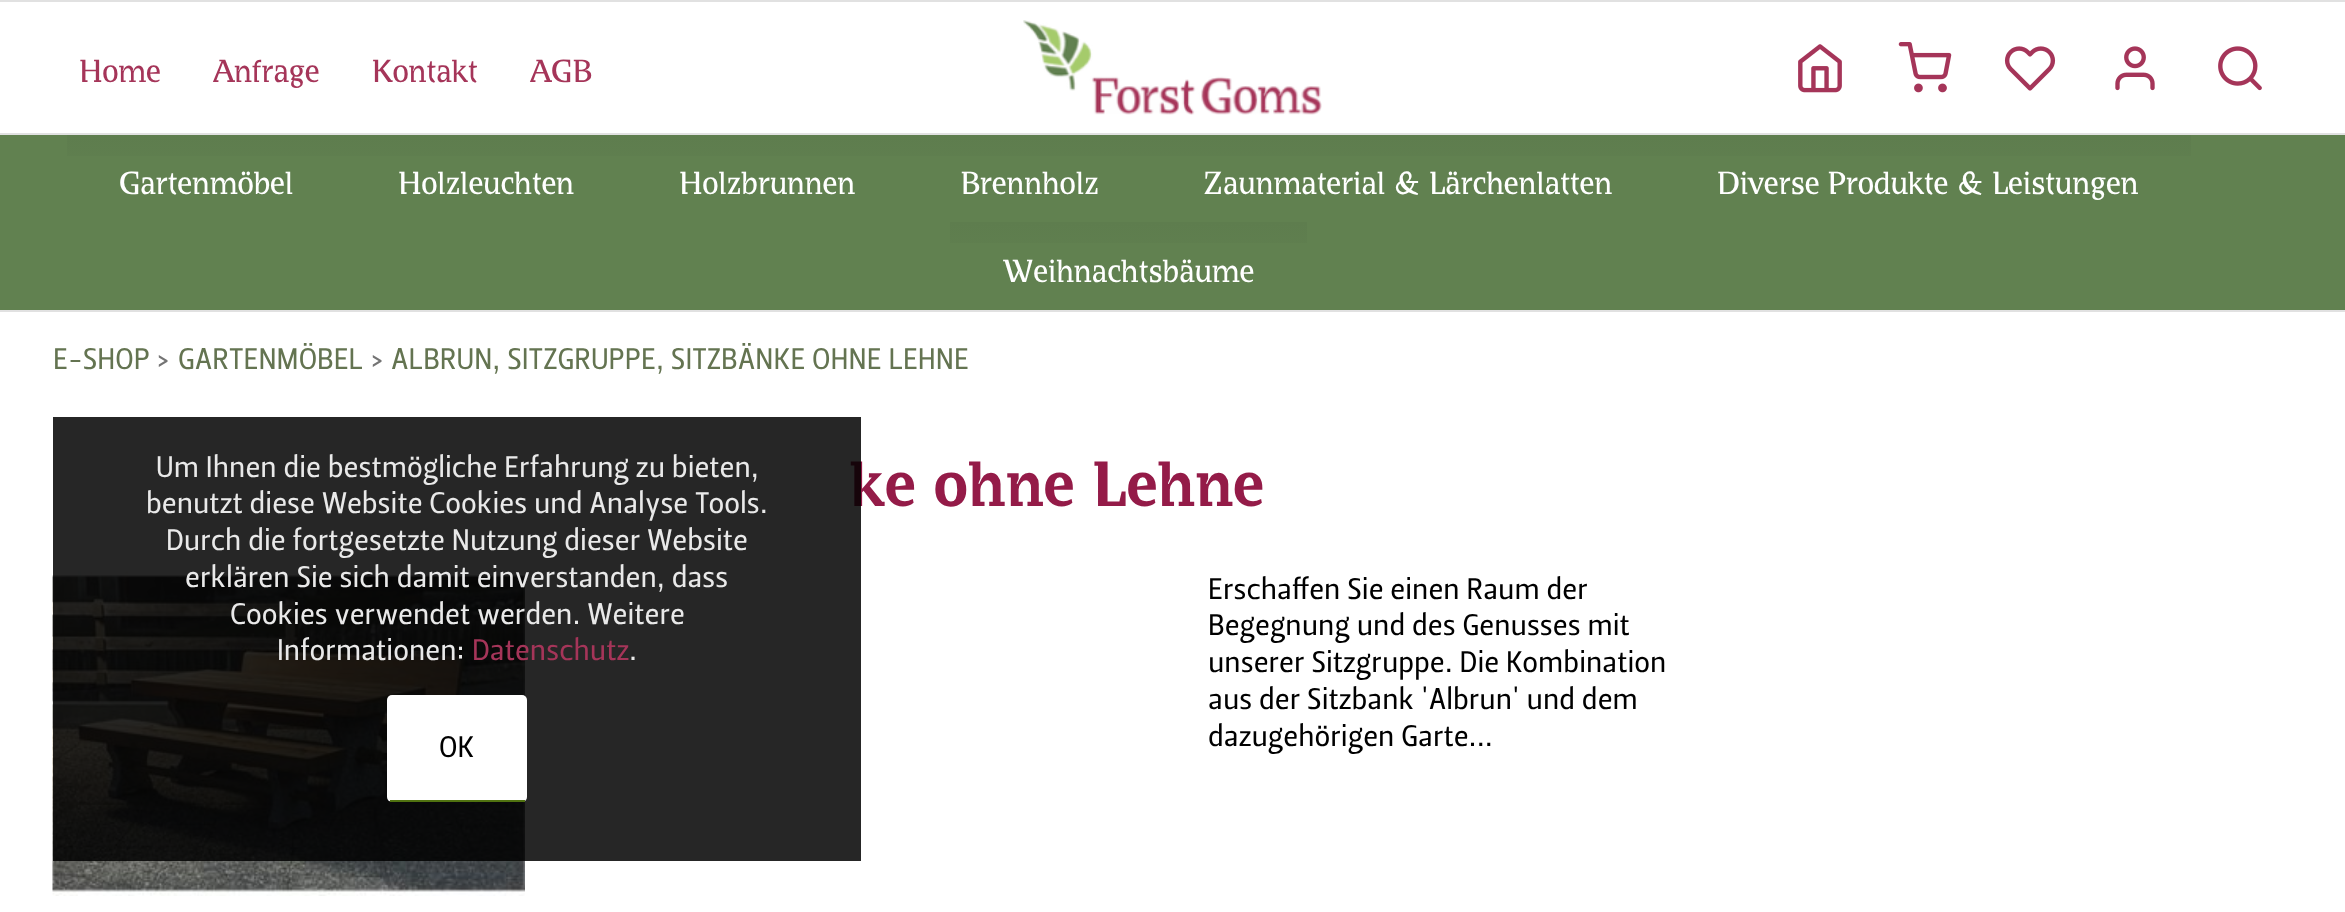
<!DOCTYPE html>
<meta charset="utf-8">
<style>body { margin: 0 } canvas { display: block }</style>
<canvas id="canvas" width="2345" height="912"></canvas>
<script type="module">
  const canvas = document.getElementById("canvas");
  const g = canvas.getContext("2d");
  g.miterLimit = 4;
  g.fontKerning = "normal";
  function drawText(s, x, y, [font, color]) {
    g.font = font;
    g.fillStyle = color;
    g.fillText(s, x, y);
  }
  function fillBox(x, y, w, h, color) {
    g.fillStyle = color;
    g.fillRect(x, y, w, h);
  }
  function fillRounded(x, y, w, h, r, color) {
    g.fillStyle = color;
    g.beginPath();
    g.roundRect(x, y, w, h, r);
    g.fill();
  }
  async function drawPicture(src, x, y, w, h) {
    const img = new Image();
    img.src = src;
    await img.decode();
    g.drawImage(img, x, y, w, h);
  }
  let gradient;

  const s1 = ["29.75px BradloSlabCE", "#A53559"];
  const s2 = ["29.75px BradloSlabCE", "#FFFFFF"];
  const s3 = ["29.75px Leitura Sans", "#647451"];
  const s4 = ["29.75px Leitura Sans", "#747474"];
  const s5 = ["bold 59.5px BradloSlabCE", "#941B48"];
  const s6 = ["29.75px Leitura Sans", "#000000"];
  const s7 = ["29.75px Leitura Sans", "#E9E9E9"];
  const s8 = ["29.75px Leitura Sans", "#A53559"];

  fillBox(0, 0, 2345, 912, "#FFFFFF");
  fillBox(0, 0, 2345, 2, "#E1E1E1");
  drawText("Home", 79, 82, s1);
  drawText("Anfrage", 213, 82, s1);
  drawText("Kontakt", 372, 82, s1);
  drawText("AGB", 530, 82, s1);
  await drawPicture("pic1.png", 1023, 20, 299, 95);
  await drawPicture("pic2.png", 1798, 44, 44, 49);
  await drawPicture("pic3.png", 1898, 42, 54, 51);
  await drawPicture("pic4.png", 2004, 46, 52, 45);
  await drawPicture("pic5.png", 2115, 46, 40, 45);
  await drawPicture("pic6.png", 2218, 46, 44, 45);
  fillBox(0, 135, 2345, 175, "#618150");
  fillBox(0, 133, 2345, 2, "#E1E1E1");
  fillBox(0, 310, 2345, 2, "#E1E1E1");
  gradient = g.createLinearGradient(206, 222, 206, 135);
  gradient.addColorStop(0, "#618150");
  gradient.addColorStop(0.35, "#618150");
  gradient.addColorStop(1, "#5E7D4E");
  g.fillStyle = gradient;
  g.fillRect(67, 135, 278, 21);
  drawText("Gartenmöbel", 119, 194, s2);
  gradient = g.createLinearGradient(486, 222, 486, 135);
  gradient.addColorStop(0, "#618150");
  gradient.addColorStop(0.35, "#618150");
  gradient.addColorStop(1, "#5E7D4E");
  g.fillStyle = gradient;
  g.fillRect(345, 135, 282, 21);
  drawText("Holzleuchten", 398, 194, s2);
  gradient = g.createLinearGradient(767, 222, 767, 135);
  gradient.addColorStop(0, "#618150");
  gradient.addColorStop(0.35, "#618150");
  gradient.addColorStop(1, "#5E7D4E");
  g.fillStyle = gradient;
  g.fillRect(627, 135, 280, 21);
  drawText("Holzbrunnen", 679, 194, s2);
  gradient = g.createLinearGradient(1029, 222, 1029, 135);
  gradient.addColorStop(0, "#618150");
  gradient.addColorStop(0.35, "#618150");
  gradient.addColorStop(1, "#5E7D4E");
  g.fillStyle = gradient;
  g.fillRect(907, 135, 245, 21);
  drawText("Brennholz", 960, 194, s2);
  gradient = g.createLinearGradient(1408, 222, 1408, 135);
  gradient.addColorStop(0, "#618150");
  gradient.addColorStop(0.35, "#618150");
  gradient.addColorStop(1, "#5E7D4E");
  g.fillStyle = gradient;
  g.fillRect(1152, 135, 512, 21);
  drawText("Zaunmaterial & Lärchenlatten", 1203, 194, s2);
  gradient = g.createLinearGradient(1928, 222, 1928, 135);
  gradient.addColorStop(0, "#618150");
  gradient.addColorStop(0.35, "#618150");
  gradient.addColorStop(1, "#5E7D4E");
  g.fillStyle = gradient;
  g.fillRect(1664, 135, 527, 21);
  drawText("Diverse Produkte & Leistungen", 1717, 194, s2);
  gradient = g.createLinearGradient(1129, 310, 1129, 222);
  gradient.addColorStop(0, "#618150");
  gradient.addColorStop(0.35, "#618150");
  gradient.addColorStop(1, "#5E7D4E");
  g.fillStyle = gradient;
  g.fillRect(950, 222, 357, 21);
  drawText("Weihnachtsbäume", 1003, 282, s2);
  drawText("E-SHOP", 53, 369, s3);
  drawText("›", 156, 369, s4);
  drawText("GARTENMÖBEL", 178, 369, s3);
  drawText("›", 370, 369, s4);
  drawText("ALBRUN, SITZGRUPPE, SITZBÄNKE OHNE LEHNE", 391, 369, s3);
  drawText("ke ohne Lehne", 849, 506, s5);
  await drawPicture("pic7.png", 52, 571, 473, 325);
  drawText("Erschaffen Sie einen Raum der", 1208, 599, s6);
  drawText("Begegnung und des Genusses mit", 1208, 635, s6);
  drawText("unserer Sitzgruppe. Die Kombination", 1208, 672, s6);
  drawText("aus der Sitzbank 'Albrun' und dem", 1208, 709, s6);
  drawText("dazugehörigen Garte...", 1208, 746, s6);
  fillBox(53, 417, 808, 444, "rgba(0, 0, 0, 0.85)");
  drawText("Um Ihnen die bestmögliche Erfahrung zu bieten,", 156, 477, s7);
  drawText("benutzt diese Website Cookies und Analyse Tools.", 146, 513, s7);
  drawText("Durch die fortgesetzte Nutzung dieser Website", 166, 550, s7);
  drawText("erklären Sie sich damit einverstanden, dass", 185, 587, s7);
  drawText("Cookies verwendet werden. Weitere", 230, 624, s7);
  drawText("Informationen:", 277, 660, s7);
  drawText("Datenschutz", 472, 660, s8);
  drawText(".", 629, 660, s7);
  fillRounded(387, 695, 140, 107, 5, "#FFFFFF");
  fillBox(390, 800, 135, 2, "#507210");
  drawText("OK", 439, 757, s6);
</script>
